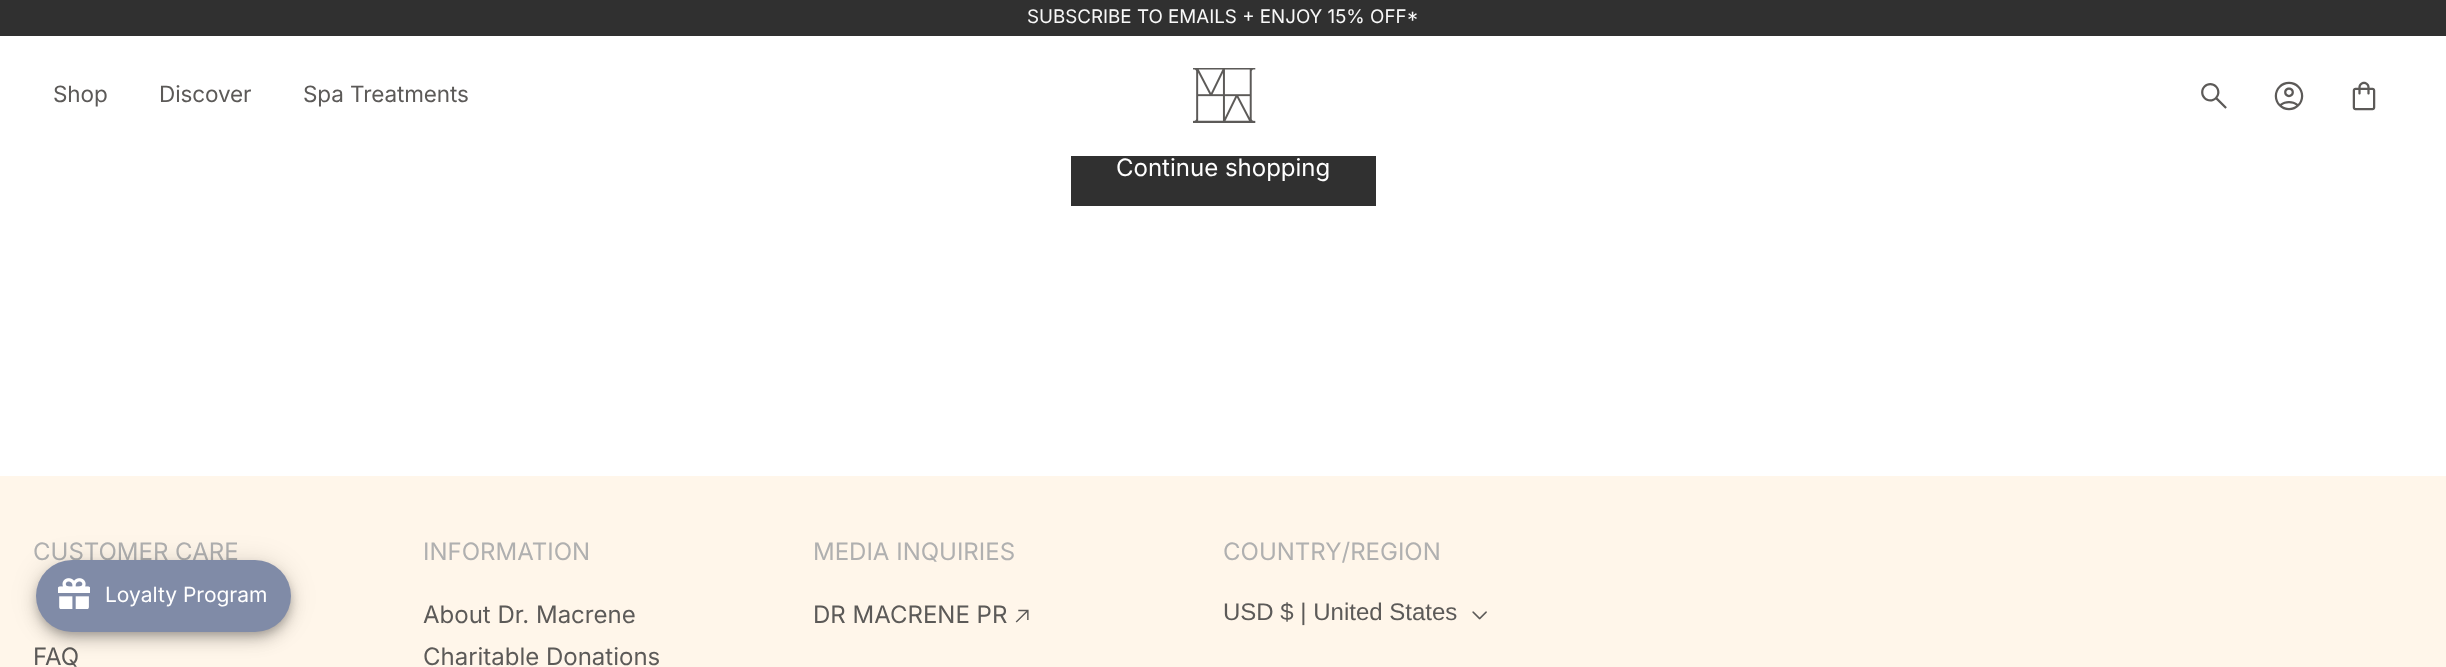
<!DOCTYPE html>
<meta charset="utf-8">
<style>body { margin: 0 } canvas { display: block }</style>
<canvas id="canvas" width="2446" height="667"></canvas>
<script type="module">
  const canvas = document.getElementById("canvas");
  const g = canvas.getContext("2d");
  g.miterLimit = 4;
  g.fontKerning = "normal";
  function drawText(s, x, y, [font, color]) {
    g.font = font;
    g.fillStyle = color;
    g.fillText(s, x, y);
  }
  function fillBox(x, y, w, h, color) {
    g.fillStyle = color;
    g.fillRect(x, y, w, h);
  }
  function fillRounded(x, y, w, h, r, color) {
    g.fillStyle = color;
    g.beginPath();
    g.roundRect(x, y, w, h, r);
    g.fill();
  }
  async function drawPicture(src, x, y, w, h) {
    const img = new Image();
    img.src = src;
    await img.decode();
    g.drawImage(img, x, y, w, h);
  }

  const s1 = ["18.75px Inter", "#F8F8F8"];
  const s2 = ["22.5px Inter", "#5C5A58"];
  const s3 = ["24px Inter", "#FFFFFF"];
  const s4 = ["24px Inter", "#B0B0B0"];
  const s5 = ["24px Inter", "#5C5A58"];
  const s6 = ["24px Liberation Sans", "#5C5A58"];
  const s7 = ["21px Inter", "#FFFFFF"];

  fillBox(0, 0, 2446, 667, "#FFFFFF");
  fillBox(0, 0, 2446, 36, "#303030");
  drawText("SUBSCRIBE TO EMAILS + ENJOY 15% OFF*", 1027, 23, s1);
  g.letterSpacing = "-0.1px";
  drawText("Shop", 53, 102, s2);
  drawText("Discover", 159, 102, s2);
  drawText("Spa Treatments", 303, 102, s2);
  await drawPicture("pic1.png", 1193, 68, 63, 55);
  await drawPicture("pic2.png", 2201, 83, 26, 26);
  await drawPicture("pic3.png", 2274, 81, 30, 30);
  await drawPicture("pic4.png", 2352, 81, 24, 30);
  fillBox(1071, 156, 305, 50, "#303030");
  g.letterSpacing = "0px";
  drawText("Continue shopping", 1116, 176, s3);
  fillBox(0, 476, 2446, 191, "#FFF6EA");
  drawText("CUSTOMER CARE", 33, 560, s4);
  drawText("FAQ", 33, 665, s5);
  drawText("INFORMATION", 423, 560, s4);
  drawText("About Dr. Macrene", 423, 623, s5);
  drawText("Charitable Donations", 423, 665, s5);
  drawText("MEDIA INQUIRIES", 813, 560, s4);
  drawText("DR MACRENE PR", 813, 623, s5);
  await drawPicture("pic5.png", 1015, 609, 14, 14);
  drawText("COUNTRY/REGION", 1223, 560, s4);
  drawText("USD $ | United States", 1223, 620, s6);
  await drawPicture("pic6.png", 1472, 611, 15, 9);
  g.fillStyle = "rgba(0, 0, 0, 0.12)";
  g.filter = "blur(13.5px)";
  g.beginPath();
  g.roundRect(36, 561, 255, 72, 36);
  g.fill();
  g.filter = "none";
  g.fillStyle = "rgba(0, 0, 0, 0.14)";
  g.filter = "blur(7.5px)";
  g.beginPath();
  g.roundRect(36, 569, 255, 72, 36);
  g.fill();
  g.filter = "none";
  g.fillStyle = "rgba(0, 0, 0, 0.2)";
  g.filter = "blur(4px)";
  g.beginPath();
  g.roundRect(38, 566, 252, 69, 34.5);
  g.fill();
  g.filter = "none";
  fillRounded(36, 560, 255, 72, 36, "#808BA7");
  await drawPicture("pic7.png", 58, 578, 32, 31);
  drawText("Loyalty Program", 105, 602, s7);
</script>
